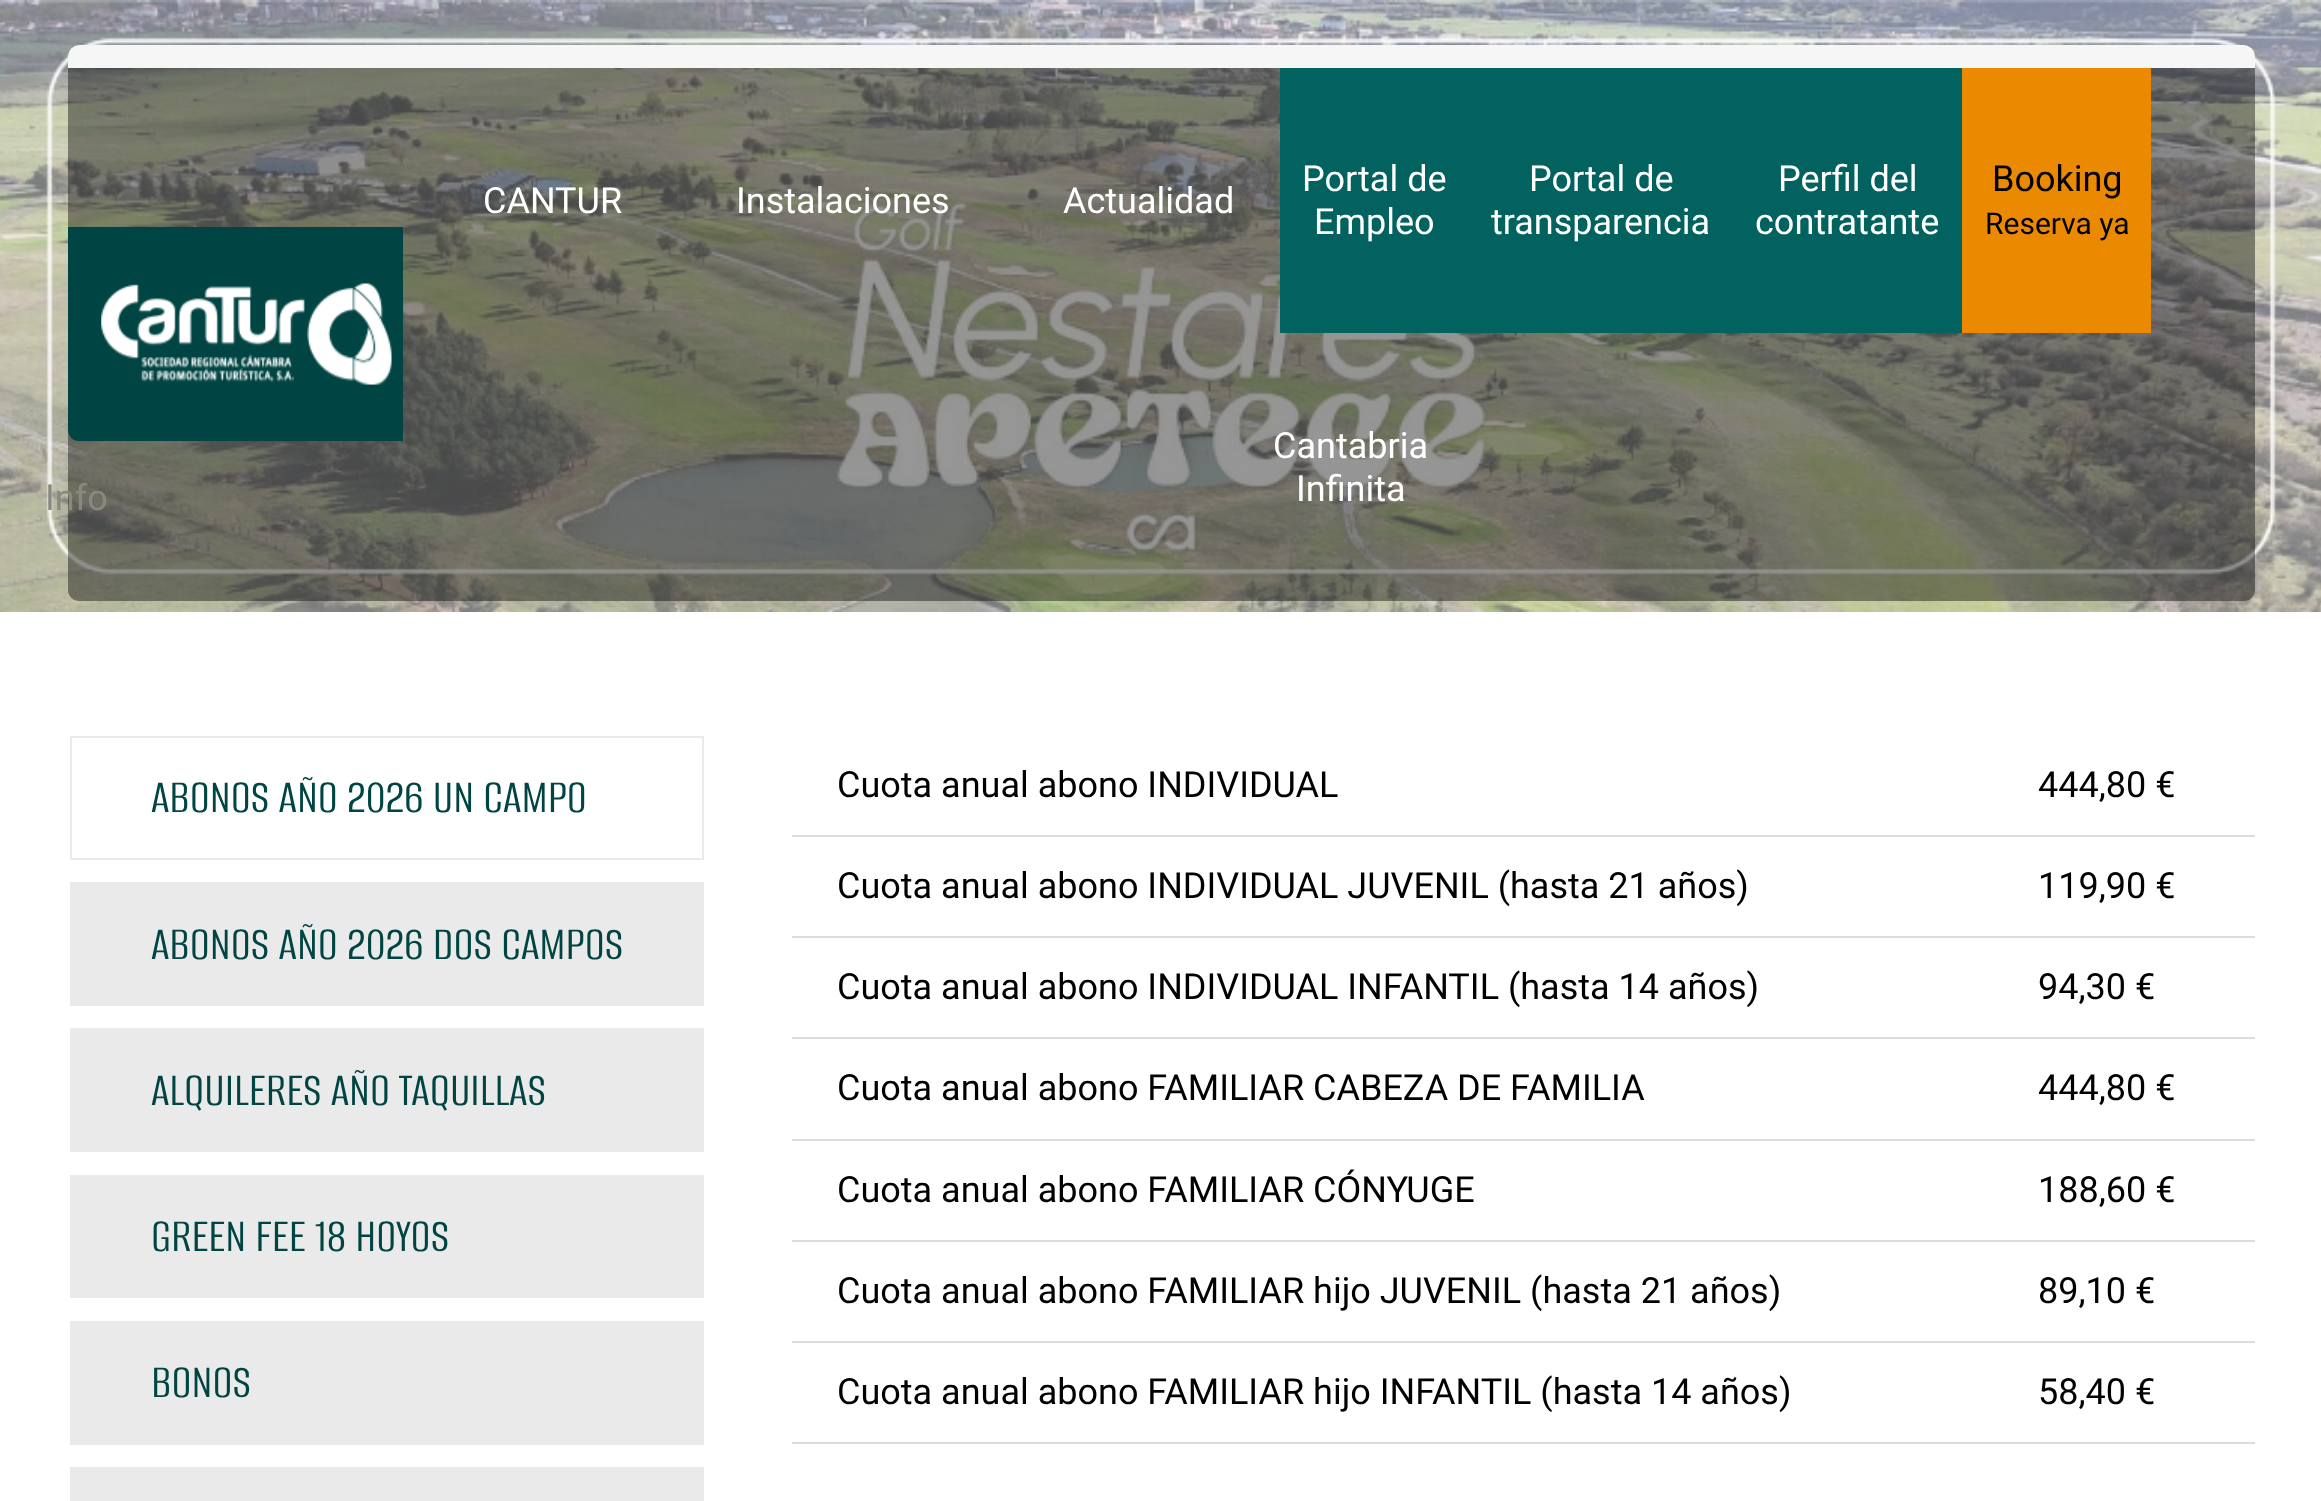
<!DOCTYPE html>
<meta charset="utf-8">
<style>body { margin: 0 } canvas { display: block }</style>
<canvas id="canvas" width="2321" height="1501"></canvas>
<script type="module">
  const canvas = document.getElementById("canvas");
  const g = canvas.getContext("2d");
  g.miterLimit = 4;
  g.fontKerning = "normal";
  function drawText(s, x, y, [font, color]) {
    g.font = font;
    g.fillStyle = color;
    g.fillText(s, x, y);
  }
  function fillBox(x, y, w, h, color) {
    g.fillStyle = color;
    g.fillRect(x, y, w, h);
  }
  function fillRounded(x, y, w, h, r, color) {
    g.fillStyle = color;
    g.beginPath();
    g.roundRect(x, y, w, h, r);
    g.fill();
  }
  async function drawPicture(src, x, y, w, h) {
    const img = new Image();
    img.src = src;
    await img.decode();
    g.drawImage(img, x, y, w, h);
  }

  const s1 = ["36px Roboto", "#FFFFFF"];
  const s2 = ["36px Roboto", "#8A897E"];
  const s3 = ["36px Roboto", "#000000"];
  const s4 = ["30px Roboto", "#000000"];
  const s5 = ["49.5px Alumni Sans", "#004543"];

  fillBox(0, 0, 2321, 1501, "#FFFFFF");
  await drawPicture("pic1.png", 0, 0, 2321, 612);
  fillRounded(68, 45, 2187, 556, 11, "rgba(0, 0, 0, 0.41)");
  g.fillStyle = "#F6F6F6";
  g.beginPath();
  g.roundRect(68, 45, 2187, 23, [11.5, 11.5, 0, 0]);
  g.fill();
  drawText("CANTUR", 483, 213, s1);
  drawText("Info", 45, 510, s2);
  drawText("Instalaciones", 736, 213, s1);
  drawText("Actualidad", 1063, 213, s1);
  fillBox(1280, 68, 682, 265, "#02625F");
  drawText("Portal de", 1302, 191, s1);
  drawText("Empleo", 1314, 234, s1);
  drawText("Portal de", 1529, 191, s1);
  drawText("transparencia", 1491, 234, s1);
  drawText("Perfil del", 1778, 191, s1);
  drawText("contratante", 1755, 234, s1);
  fillBox(1962, 68, 189, 265, "#EB8900");
  drawText("Booking", 1992, 191, s3);
  drawText("Reserva ya", 1985, 234, s4);
  drawText("Cantabria", 1273, 458, s1);
  drawText("Infinita", 1296, 501, s1);
  g.fillStyle = "#004543";
  g.beginPath();
  g.roundRect(68, 227, 335, 214, [0, 0, 0, 11]);
  g.fill();
  await drawPicture("pic2.png", 101, 283, 291, 102);
  g.strokeStyle = "#EBEAEA";
  g.lineWidth = 2;
  g.strokeRect(71, 737, 632, 122);
  drawText("ABONOS AÑO 2026 UN CAMPO", 151, 812, s5);
  fillBox(70, 882, 634, 124, "#EBEAEA");
  drawText("ABONOS AÑO 2026 DOS CAMPOS", 151, 959, s5);
  fillBox(70, 1028, 634, 124, "#EBEAEA");
  drawText("ALQUILERES AÑO TAQUILLAS", 151, 1105, s5);
  fillBox(70, 1175, 634, 123, "#EBEAEA");
  drawText("GREEN FEE 18 HOYOS", 151, 1251, s5);
  fillBox(70, 1321, 634, 124, "#EBEAEA");
  drawText("BONOS", 151, 1397, s5);
  fillBox(70, 1467, 634, 34, "#EBEAEA");
  drawText("Cuota anual abono INDIVIDUAL", 837, 797, s3);
  fillBox(792, 835, 1463, 2, "#DCDCDC");
  drawText("444,80 €", 2038, 797, s3);
  drawText("Cuota anual abono INDIVIDUAL JUVENIL (hasta 21 años)", 837, 898, s3);
  fillBox(792, 936, 1463, 2, "#DCDCDC");
  drawText("119,90 €", 2038, 898, s3);
  drawText("Cuota anual abono INDIVIDUAL INFANTIL (hasta 14 años)", 837, 999, s3);
  fillBox(792, 1037, 1463, 2, "#DCDCDC");
  drawText("94,30 €", 2038, 999, s3);
  drawText("Cuota anual abono FAMILIAR CABEZA DE FAMILIA", 837, 1100, s3);
  fillBox(792, 1139, 1463, 2, "#DCDCDC");
  drawText("444,80 €", 2038, 1100, s3);
  drawText("Cuota anual abono FAMILIAR CÓNYUGE", 837, 1202, s3);
  fillBox(792, 1240, 1463, 2, "#DCDCDC");
  drawText("188,60 €", 2038, 1202, s3);
  drawText("Cuota anual abono FAMILIAR hijo JUVENIL (hasta 21 años)", 837, 1303, s3);
  fillBox(792, 1341, 1463, 2, "#DCDCDC");
  drawText("89,10 €", 2038, 1303, s3);
  drawText("Cuota anual abono FAMILIAR hijo INFANTIL (hasta 14 años)", 837, 1404, s3);
  fillBox(792, 1442, 1463, 2, "#DCDCDC");
  drawText("58,40 €", 2038, 1404, s3);
</script>
